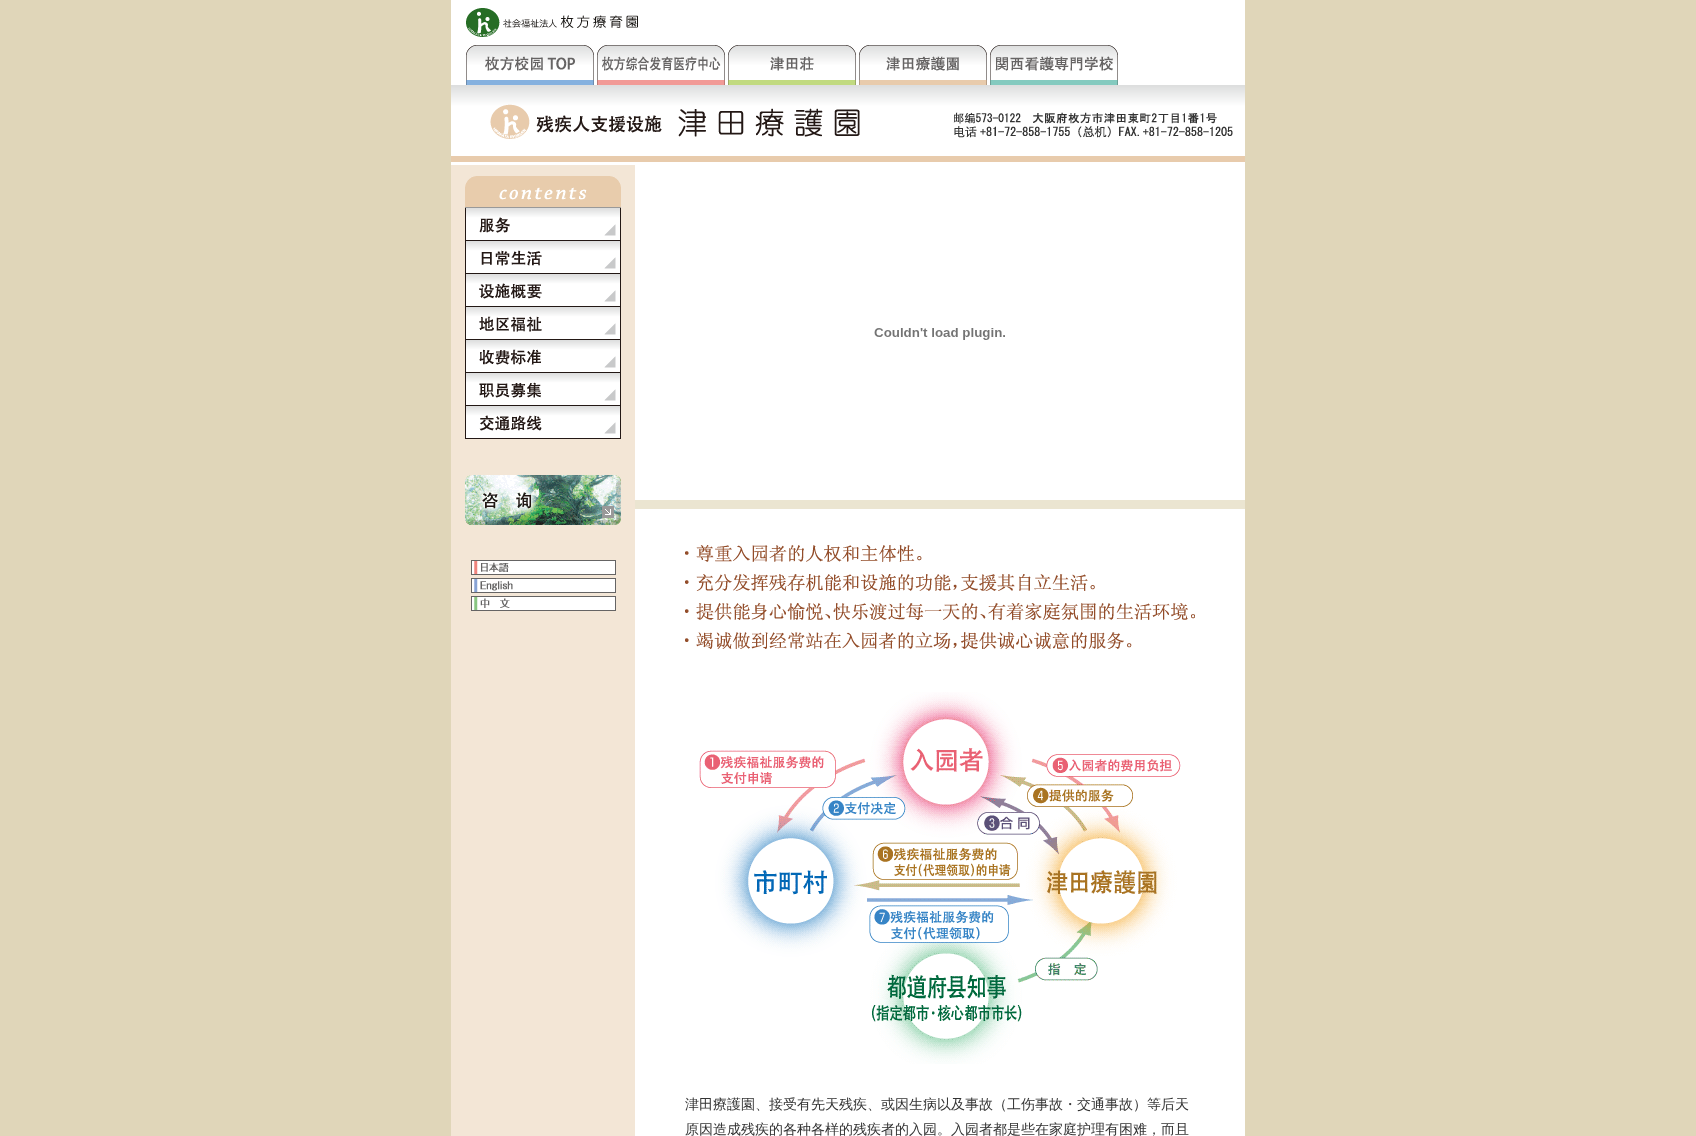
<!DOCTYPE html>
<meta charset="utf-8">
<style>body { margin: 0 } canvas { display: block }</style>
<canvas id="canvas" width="1696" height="1136"></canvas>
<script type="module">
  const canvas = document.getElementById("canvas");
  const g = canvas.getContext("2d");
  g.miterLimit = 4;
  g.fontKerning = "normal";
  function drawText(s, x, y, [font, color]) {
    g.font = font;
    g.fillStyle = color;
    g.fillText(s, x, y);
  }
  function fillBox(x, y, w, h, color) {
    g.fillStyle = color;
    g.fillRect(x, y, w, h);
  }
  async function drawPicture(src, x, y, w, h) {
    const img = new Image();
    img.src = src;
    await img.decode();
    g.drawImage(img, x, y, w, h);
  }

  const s1 = ["500 14px WenQuanYi Zen Hei", "#333333"];

  fillBox(0, 0, 1696, 1136, "#E0D6B9");
  fillBox(451, 0, 794, 1136, "#FFFFFF");
  await drawPicture("pic1.png", 466, 8, 172, 29);
  await drawPicture("pic2.png", 466, 45, 128, 40);
  await drawPicture("pic3.png", 597, 45, 128, 40);
  await drawPicture("pic4.png", 728, 45, 128, 40);
  await drawPicture("pic5.png", 859, 45, 128, 40);
  await drawPicture("pic6.png", 990, 45, 128, 40);
  await drawPicture("pic7.png", 451, 85, 794, 77);
  fillBox(451, 165, 184, 971, "#F3E6D6");
  await drawPicture("pic8.png", 465, 176, 156, 32);
  await drawPicture("pic9.png", 465, 208, 156, 33);
  await drawPicture("pic10.png", 465, 241, 156, 33);
  await drawPicture("pic11.png", 465, 274, 156, 33);
  await drawPicture("pic12.png", 465, 307, 156, 33);
  await drawPicture("pic13.png", 465, 340, 156, 33);
  await drawPicture("pic14.png", 465, 373, 156, 33);
  await drawPicture("pic15.png", 465, 406, 156, 33);
  await drawPicture("pic16.png", 465, 475, 156, 50);
  await drawPicture("pic17.png", 471, 560, 145, 15);
  await drawPicture("pic18.png", 471, 578, 145, 15);
  await drawPicture("pic19.png", 471, 596, 145, 15);
  await drawPicture("pic20.png", 874, 328, 131, 12);
  fillBox(635, 500, 610, 9, "#EBE5D1");
  await drawPicture("pic21.png", 685, 545, 510, 104);
  await drawPicture("pic22.png", 699, 692, 482, 372);
  drawText("津田療護園、接受有先天残疾、或因生病以及事故（工伤事故・交通事故）等后天", 685, 1109, s1);
  drawText("原因造成残疾的各种各样的残疾者的入园。入园者都是些在家庭护理有困难，而且", 685, 1134, s1);
</script>
